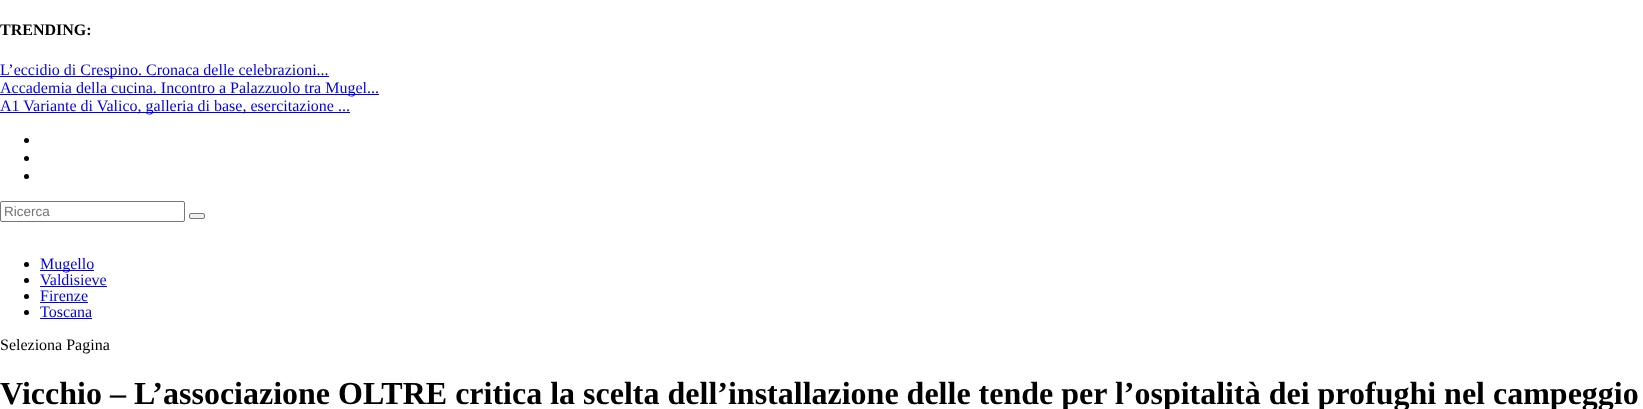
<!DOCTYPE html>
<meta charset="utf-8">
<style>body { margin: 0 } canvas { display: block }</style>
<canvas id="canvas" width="1643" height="409"></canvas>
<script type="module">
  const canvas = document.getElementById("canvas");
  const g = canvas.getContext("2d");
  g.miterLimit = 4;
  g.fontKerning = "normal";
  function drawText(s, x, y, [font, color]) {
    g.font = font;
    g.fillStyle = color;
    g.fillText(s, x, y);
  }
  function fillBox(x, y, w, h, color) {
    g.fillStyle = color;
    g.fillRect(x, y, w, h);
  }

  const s1 = ["bold 16px Liberation Serif", "#000000"];
  const s2 = ["16px Liberation Serif", "#0000EE"];
  const s3 = ["13.5px Liberation Sans", "#757575"];
  const s4 = ["16px Liberation Serif", "#000000"];
  const s5 = ["bold 32px Liberation Serif", "#000000"];

  fillBox(0, 0, 1643, 409, "#FFFFFF");
  drawText("TRENDING:", 0, 35, s1);
  fillBox(0, 76, 329, 1, "#0000EE");
  drawText("L’eccidio di Crespino. Cronaca delle celebrazioni...", 0, 75, s2);
  fillBox(0, 94, 379, 1, "#0000EE");
  drawText("Accademia della cucina. Incontro a Palazzuolo tra Mugel...", 0, 93, s2);
  fillBox(0, 112, 350, 1, "#0000EE");
  drawText("A1 Variante di Valico, galleria di base, esercitazione ...", 0, 111, s2);
  g.fillStyle = "#000000";
  g.beginPath();
  g.arc(26.5, 140.5, 2.5, 0, Math.PI * 2);
  g.fill();
  g.beginPath();
  g.arc(26.5, 158.5, 2.5, 0, Math.PI * 2);
  g.fill();
  g.beginPath();
  g.arc(26.5, 176.5, 2.5, 0, Math.PI * 2);
  g.fill();
  g.beginPath();
  g.roundRect(0.5, 201.5, 184, 20, 1.5);
  g.strokeStyle = "#767676";
  g.stroke();
  drawText("Ricerca", 4, 216, s3);
  g.fillStyle = "#EFEFEF";
  g.beginPath();
  g.roundRect(189.5, 213.5, 15, 5, 1.5);
  g.fill();
  g.stroke();
  g.fillStyle = "#000000";
  g.beginPath();
  g.arc(26.5, 264.5, 2.5, 0, Math.PI * 2);
  g.fill();
  fillBox(40, 270, 54, 1, "#0000EE");
  drawText("Mugello", 40, 269, s2);
  g.fillStyle = "#000000";
  g.beginPath();
  g.arc(26.5, 280.5, 2.5, 0, Math.PI * 2);
  g.fill();
  drawText("Valdisieve", 40, 285, s2);
  fillBox(40, 286, 67, 1, "#0000EE");
  g.fillStyle = "#000000";
  g.beginPath();
  g.arc(26.5, 296.5, 2.5, 0, Math.PI * 2);
  g.fill();
  drawText("Firenze", 40, 301, s2);
  fillBox(40, 302, 48, 1, "#0000EE");
  g.fillStyle = "#000000";
  g.beginPath();
  g.arc(26.5, 312.5, 2.5, 0, Math.PI * 2);
  g.fill();
  drawText("Toscana", 40, 317, s2);
  fillBox(40, 318, 52, 1, "#0000EE");
  drawText("Seleziona Pagina", 0, 350, s4);
  drawText("Vicchio – L’associazione OLTRE critica la scelta dell’installazione delle tende per l’ospitalità dei profughi nel campeggio", 0, 404, s5);
</script>
